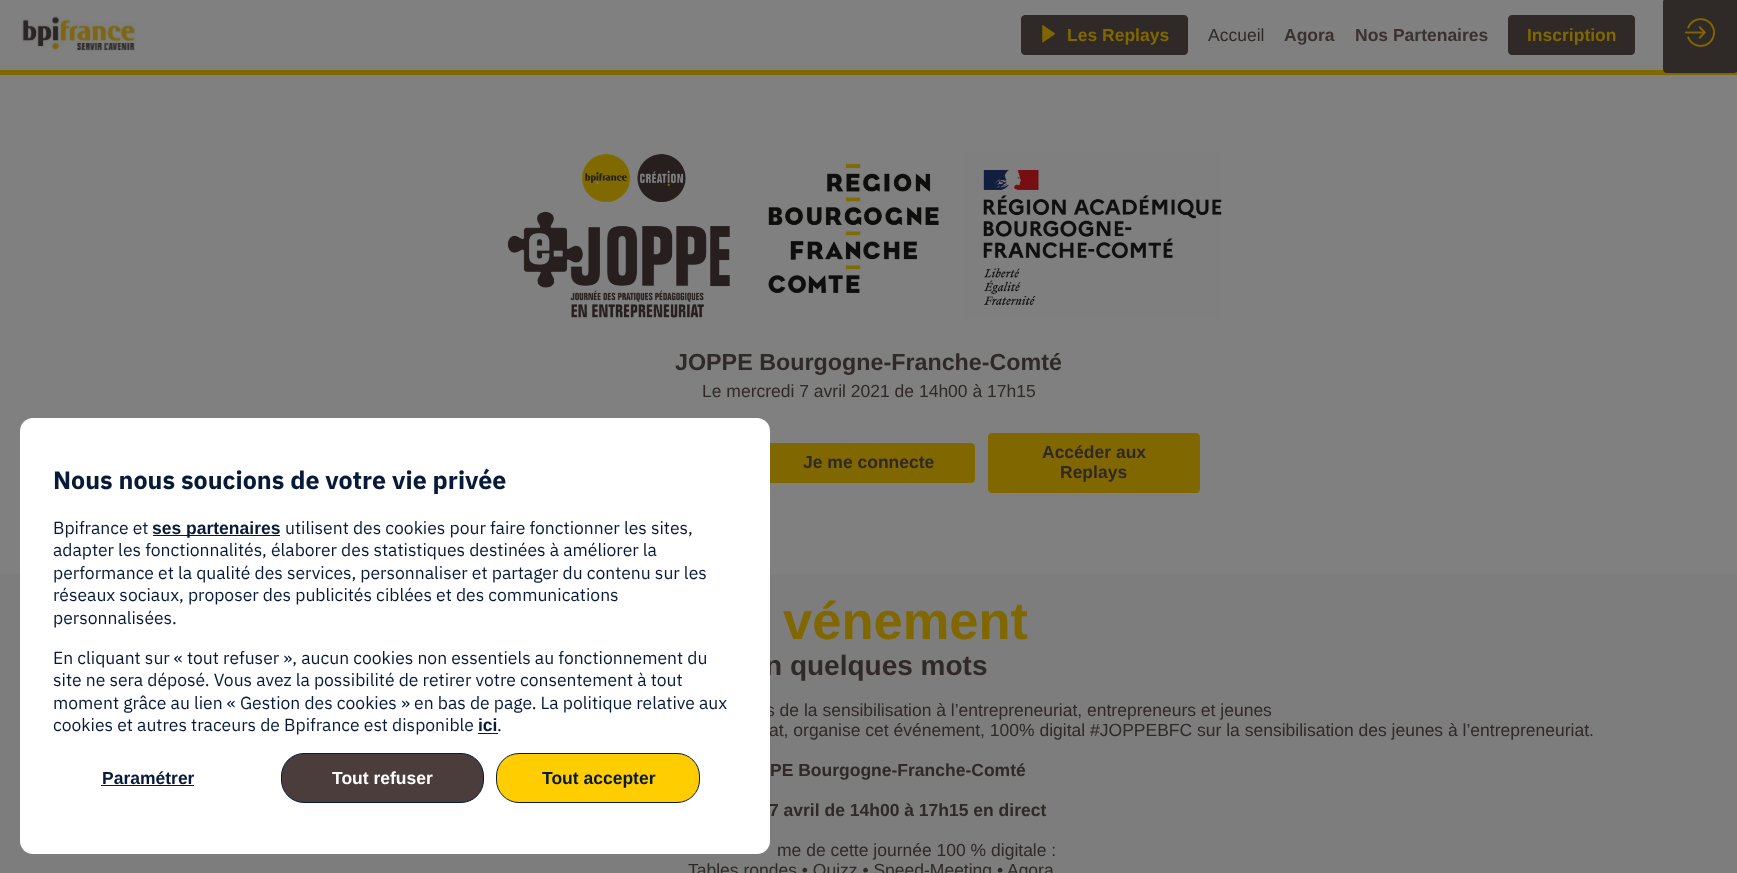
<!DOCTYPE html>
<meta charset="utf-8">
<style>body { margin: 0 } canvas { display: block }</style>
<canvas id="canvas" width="1737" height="873"></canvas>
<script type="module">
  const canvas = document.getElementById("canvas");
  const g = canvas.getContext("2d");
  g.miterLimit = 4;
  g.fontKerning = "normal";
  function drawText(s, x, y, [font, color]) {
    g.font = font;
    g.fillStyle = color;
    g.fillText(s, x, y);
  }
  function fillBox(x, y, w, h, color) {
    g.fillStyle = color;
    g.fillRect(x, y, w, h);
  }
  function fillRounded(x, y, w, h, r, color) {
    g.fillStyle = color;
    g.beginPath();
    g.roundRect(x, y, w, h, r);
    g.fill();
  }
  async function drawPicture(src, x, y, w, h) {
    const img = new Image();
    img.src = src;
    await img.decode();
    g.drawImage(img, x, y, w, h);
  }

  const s1 = ["bold 28px Liberation Sans", "#2F2927"];
  const s2 = ["17.5px Liberation Sans", "#2F2927"];
  const s3 = ["bold 17.5px Liberation Sans", "#2F2927"];
  const s4 = ["bold 25px IBM Plex Sans", "#071A39"];
  const s5 = ["17.5px IBM Plex Sans", "#071A39"];
  const s6 = ["bold 17.5px Liberation Sans", "#071A39"];
  const s7 = ["bold 17.5px Liberation Sans", "#FFFFFF"];
  const s8 = ["bold 17.5px Liberation Sans", "#806700"];
  const s9 = ["bold 17.5px Liberation Sans", "#3B312E"];
  const s10 = ["bold 23.3px Liberation Sans", "#2F2927"];
  const s11 = ["bold 52.5px Liberation Sans", "#806700"];

  fillBox(0, 0, 1737, 873, "#808080");
  g.fillStyle = "#806700";
  g.beginPath();
  g.roundRect(763.5, 443.5, 211, 39, 3.5);
  g.fill();
  g.strokeStyle = "#806700";
  g.stroke();
  fillBox(0, 574, 1737, 299, "#7D7D7D");
  drawText("n quelques mots", 765, 675, s1);
  drawText("s de la sensibilisation à l’entrepreneuriat, entrepreneurs et jeunes", 766, 716, s2);
  drawText("at, organise cet événement, 100% digital #JOPPEBFC sur la sensibilisation des jeunes à l’entrepreneuriat.", 769, 736, s2);
  drawText("7 avril de 14h00 à 17h15 en direct", 769, 816, s3);
  fillRounded(20, 418, 750, 436, 13, "#FFFFFF");
  drawText("Nous nous soucions de votre vie privée", 53, 489, s4);
  drawText("Bpifrance et", 53, 534, s5);
  fillBox(153, 535, 127, 1, "#071A39");
  drawText("ses partenaires", 152, 534, s6);
  drawText("utilisent des cookies pour faire fonctionner les sites,", 285, 534, s5);
  drawText("adapter les fonctionnalités, élaborer des statistiques destinées à améliorer la", 53, 556, s5);
  drawText("performance et la qualité des services, personnaliser et partager du contenu sur les", 53, 579, s5);
  drawText("réseaux sociaux, proposer des publicités ciblées et des communications", 53, 601, s5);
  drawText("personnalisées.", 53, 624, s5);
  drawText("En cliquant sur « tout refuser », aucun cookies non essentiels au fonctionnement du", 53, 664, s5);
  drawText("site ne sera déposé. Vous avez la possibilité de retirer votre consentement à tout", 53, 686, s5);
  drawText("moment grâce au lien « Gestion des cookies » en bas de page. La politique relative aux", 53, 709, s5);
  drawText("cookies et autres traceurs de Bpifrance est disponible", 53, 731, s5);
  drawText("ici", 478, 731, s6);
  fillBox(478, 733, 20, 1, "#071A39");
  drawText(".", 497, 731, s5);
  drawText("Paramétrer", 102, 784, s6);
  fillBox(101, 785, 93, 1, "#071A39");
  g.fillStyle = "#4B3D3C";
  g.beginPath();
  g.roundRect(281.5, 753.5, 202, 49, 22.5);
  g.fill();
  g.strokeStyle = "#071A39";
  g.stroke();
  drawText("Tout refuser", 332, 784, s7);
  g.fillStyle = "#FFCD00";
  g.beginPath();
  g.roundRect(496.5, 753.5, 203, 49, 22.5);
  g.fill();
  g.stroke();
  drawText("Tout accepter", 542, 784, s6);
  fillBox(0, 70, 1737, 5, "#806700");
  await drawPicture("pic1.png", 22, 16, 114, 35);
  g.fillStyle = "#2F2927";
  g.beginPath();
  g.roundRect(1021.5, 15.5, 166, 39, 3.5);
  g.fill();
  g.strokeStyle = "#2F2927";
  g.stroke();
  await drawPicture("pic2.png", 1042, 25, 14, 18);
  drawText("Les Replays", 1067, 41, s8);
  drawText("Accueil", 1208, 41, s2);
  drawText("Agora", 1284, 41, s9);
  drawText("Nos Partenaires", 1355, 41, s9);
  g.fillStyle = "#2F2927";
  g.beginPath();
  g.roundRect(1508.5, 15.5, 126, 39, 3.5);
  g.fill();
  g.stroke();
  drawText("Inscription", 1527, 41, s8);
  g.fillStyle = "#2F2927";
  g.beginPath();
  g.roundRect(1663.5, -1.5, 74, 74, 3.5);
  g.fill();
  g.stroke();
  await drawPicture("pic3.png", 1685, 18, 30, 29);
  await drawPicture("pic4.png", 507, 153, 715, 165);
  drawText("JOPPE Bourgogne-Franche-Comté", 675, 370, s10);
  drawText("Le mercredi 7 avril 2021 de 14h00 à 17h15", 702, 397, s2);
  drawText("Je me connecte", 803, 468, s3);
  g.fillStyle = "#806700";
  g.beginPath();
  g.roundRect(988.5, 433.5, 211, 59, 3.5);
  g.fill();
  g.strokeStyle = "#806700";
  g.stroke();
  drawText("Accéder aux", 1042, 458, s3);
  drawText("Replays", 1060, 478, s3);
  drawText("vénement", 783, 639, s11);
  drawText("PE Bourgogne-Franche-Comté", 770, 776, s3);
  drawText("me de cette journée 100 % digitale :", 777, 856, s2);
  drawText("Tables rondes • Quizz • Speed-Meeting • Agora", 688, 876, s2);
</script>
